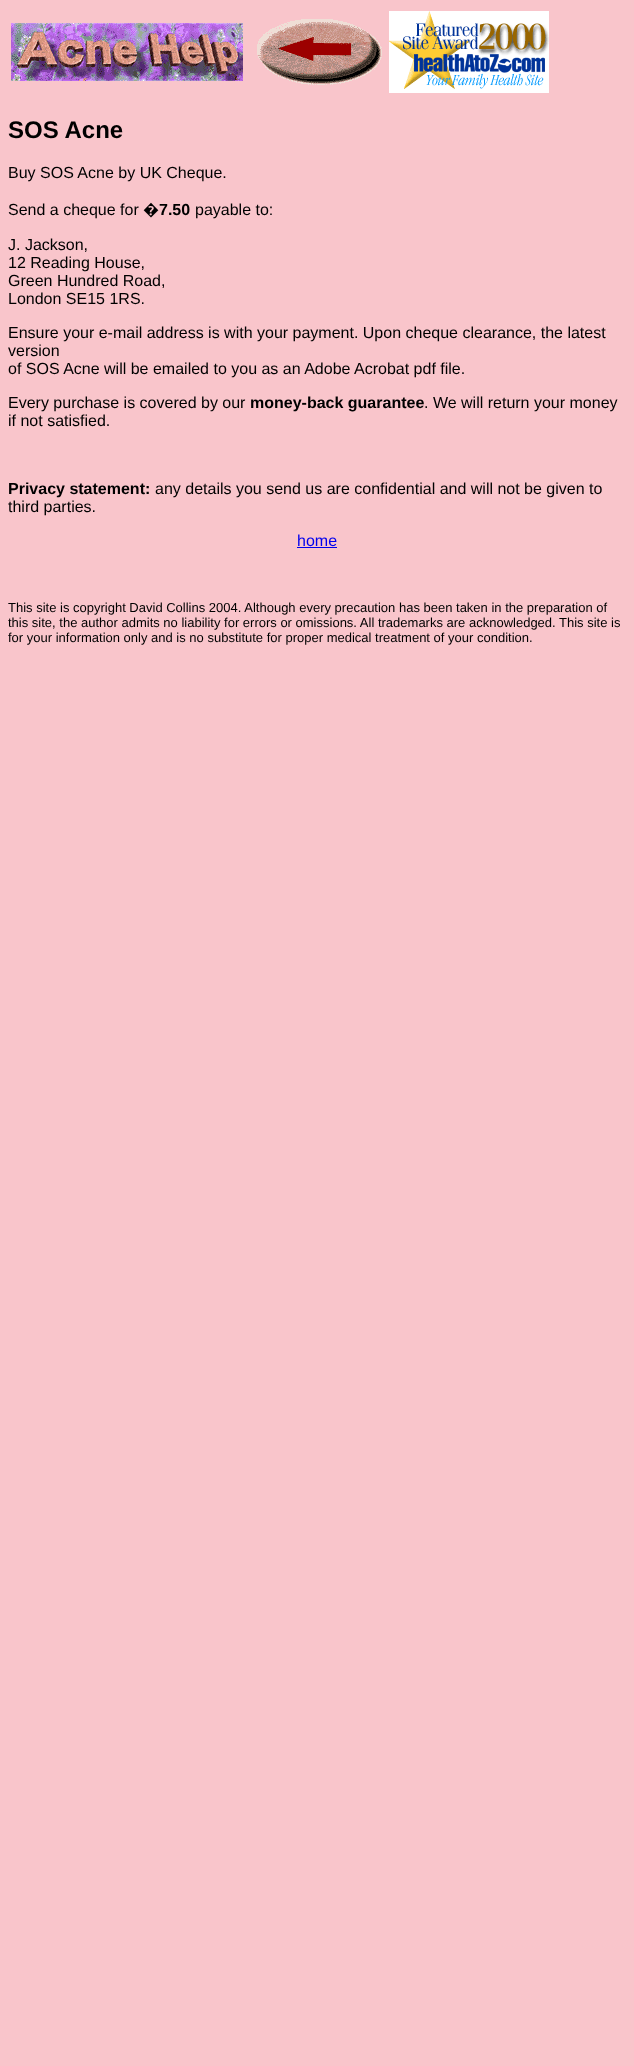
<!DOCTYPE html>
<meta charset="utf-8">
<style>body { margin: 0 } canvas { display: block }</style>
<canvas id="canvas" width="634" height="2066"></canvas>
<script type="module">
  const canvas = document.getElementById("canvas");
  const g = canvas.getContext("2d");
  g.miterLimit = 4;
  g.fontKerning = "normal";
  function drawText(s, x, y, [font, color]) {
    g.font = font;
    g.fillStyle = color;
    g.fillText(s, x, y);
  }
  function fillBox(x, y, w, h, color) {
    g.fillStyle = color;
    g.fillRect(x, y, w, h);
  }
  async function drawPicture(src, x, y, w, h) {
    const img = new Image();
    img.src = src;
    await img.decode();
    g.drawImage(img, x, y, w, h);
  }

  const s1 = ["bold 24px Liberation Sans", "#000000"];
  const s2 = ["16px Liberation Sans", "#000000"];
  const s3 = ["bold 16px Noto Sans", "#000000"];
  const s4 = ["bold 16px Liberation Sans", "#000000"];
  const s5 = ["16px Liberation Sans", "#0000EE"];
  const s6 = ["13px Liberation Sans", "#000000"];

  fillBox(0, 0, 634, 2066, "#F9C5CB");
  await drawPicture("pic1.png", 11, 23, 232, 58);
  await drawPicture("pic2.png", 257, 19, 125, 66);
  await drawPicture("pic3.png", 389, 11, 160, 82);
  drawText("SOS Acne", 8, 138, s1);
  drawText("Buy SOS Acne by UK Cheque.", 8, 178, s2);
  drawText("Send a cheque for", 8, 215, s2);
  drawText("�", 143, 215, s3);
  drawText("7.50", 159, 215, s4);
  drawText("payable to:", 195, 215, s2);
  drawText("J. Jackson,", 8, 250, s2);
  drawText("12 Reading House,", 8, 268, s2);
  drawText("Green Hundred Road,", 8, 286, s2);
  drawText("London SE15 1RS.", 8, 304, s2);
  drawText("Ensure your e-mail address is with your payment. Upon cheque clearance, the latest", 8, 338, s2);
  drawText("version", 8, 356, s2);
  drawText("of SOS Acne will be emailed to you as an Adobe Acrobat pdf file.", 8, 374, s2);
  drawText("Every purchase is covered by our", 8, 408, s2);
  drawText("money-back guarantee", 250, 408, s4);
  drawText(". We will return your money", 424, 408, s2);
  drawText("if not satisfied.", 8, 426, s2);
  drawText("Privacy statement:", 8, 494, s4);
  drawText("any details you send us are confidential and will not be given to", 155, 494, s2);
  drawText("third parties.", 8, 512, s2);
  drawText("home", 297, 546, s5);
  fillBox(297, 547, 40, 1, "#0000EE");
  drawText("This site is copyright David Collins 2004. Although every precaution has been taken in the preparation of", 8, 612, s6);
  drawText("this site, the author admits no liability for errors or omissions. All trademarks are acknowledged. This site is", 8, 627, s6);
  drawText("for your information only and is no substitute for proper medical treatment of your condition.", 8, 642, s6);
</script>
